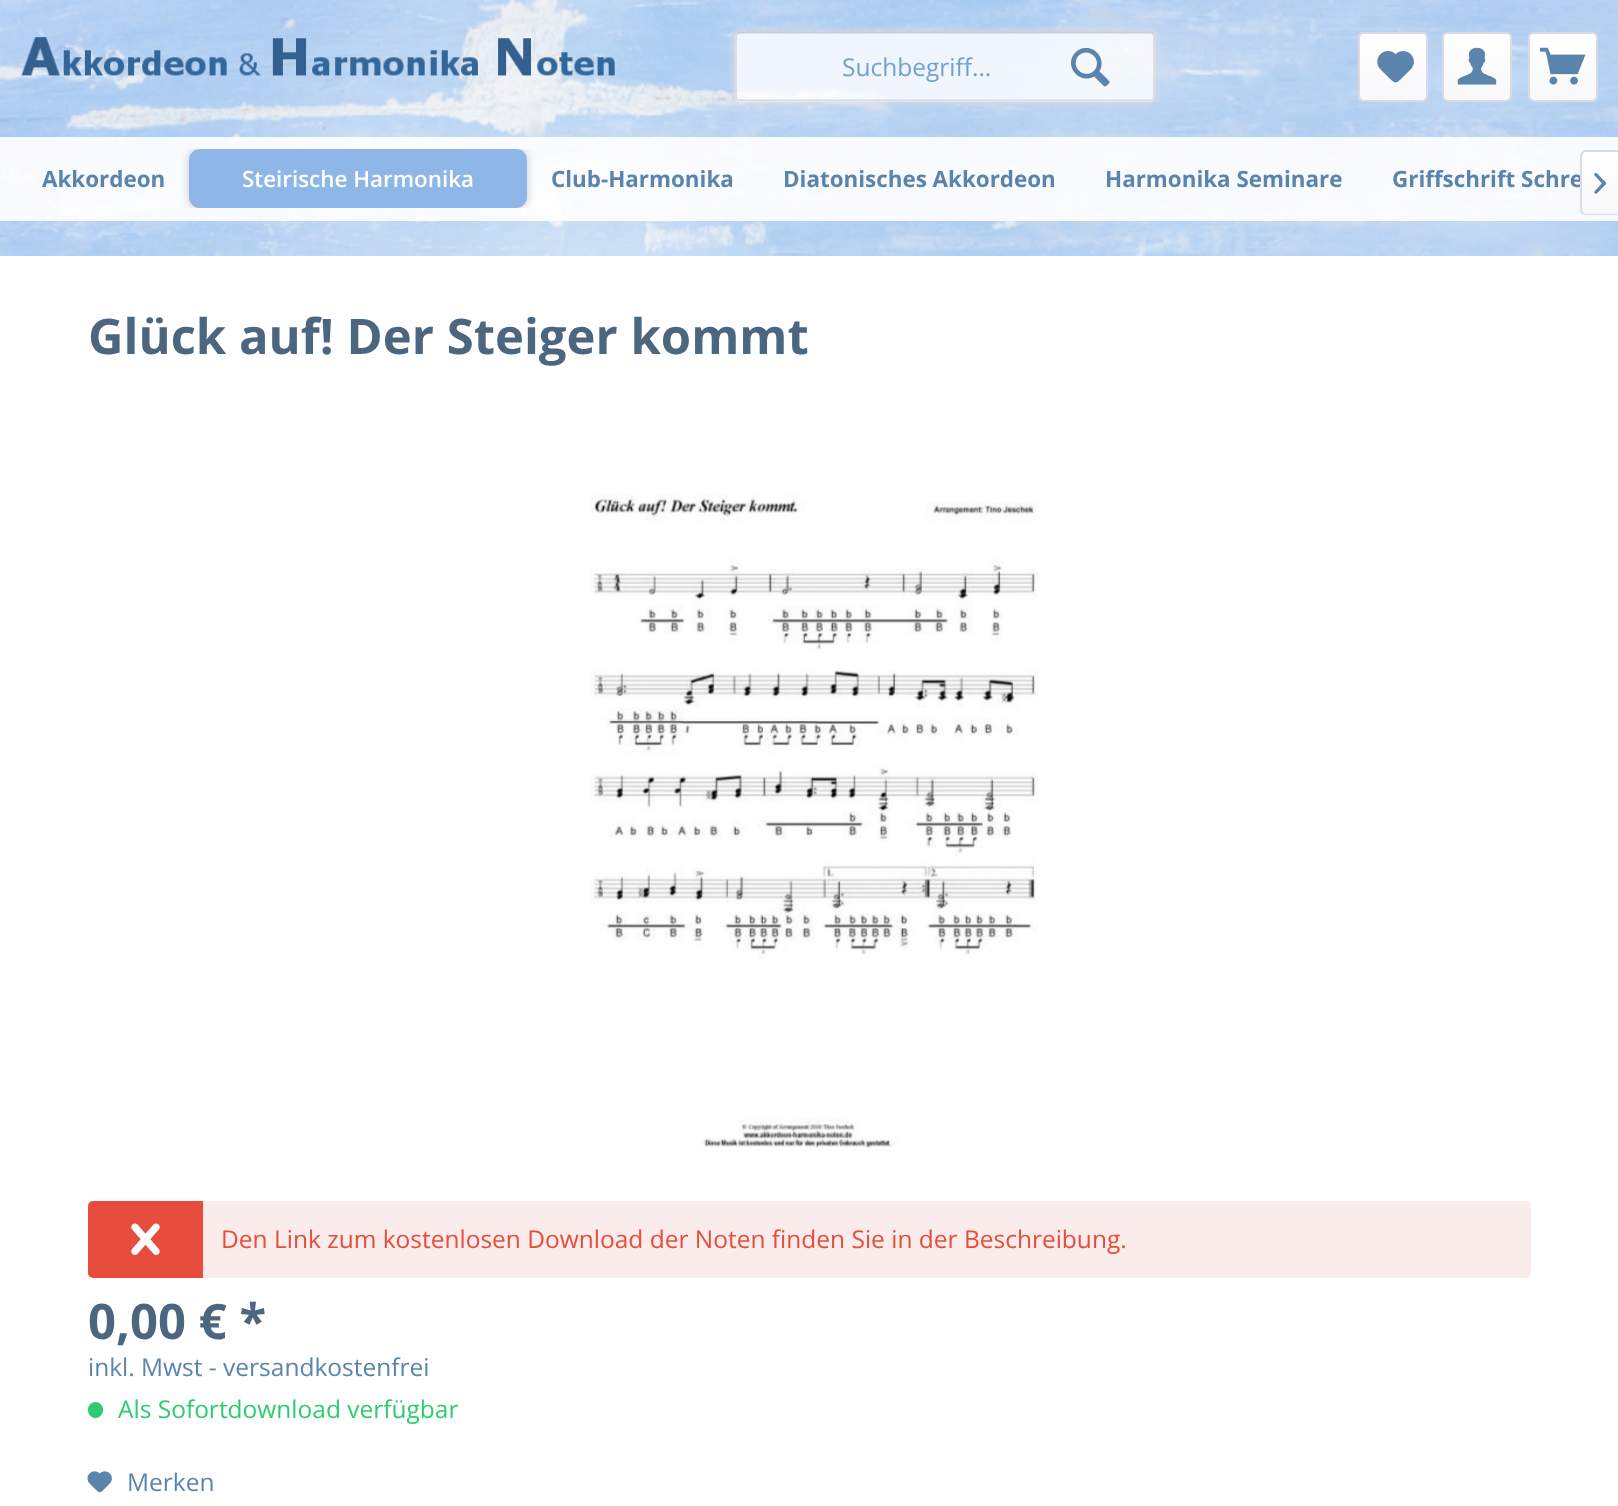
<!DOCTYPE html>
<meta charset="utf-8">
<style>body { margin: 0 } canvas { display: block }</style>
<canvas id="canvas" width="1618" height="1506"></canvas>
<script type="module">
  const canvas = document.getElementById("canvas");
  const g = canvas.getContext("2d");
  g.miterLimit = 4;
  g.fontKerning = "normal";
  function drawText(s, x, y, [font, color]) {
    g.font = font;
    g.fillStyle = color;
    g.fillText(s, x, y);
  }
  function fillBox(x, y, w, h, color) {
    g.fillStyle = color;
    g.fillRect(x, y, w, h);
  }
  function fillRounded(x, y, w, h, r, color) {
    g.fillStyle = color;
    g.beginPath();
    g.roundRect(x, y, w, h, r);
    g.fill();
  }
  async function drawPicture(src, x, y, w, h) {
    const img = new Image();
    img.src = src;
    await img.decode();
    g.drawImage(img, x, y, w, h);
  }
  let gradient;

  const s1 = ["24.5px Open Sans", "#72A1D1"];
  const s2 = ["bold 22.4px Open Sans", "#5A84AD"];
  const s3 = ["600 22.4px Open Sans", "#FFFFFF"];
  const s4 = ["bold 49px Open Sans", "#4D6680"];
  const s5 = ["24.5px Open Sans", "#E74C3C"];
  const s6 = ["24.5px Open Sans", "#5A84AD"];
  const s7 = ["24.5px Open Sans", "#2ECC71"];

  fillBox(0, 0, 1618, 1506, "#FFFFFF");
  await drawPicture("pic1.png", 0, 0, 1618, 256);
  await drawPicture("pic2.png", 21, 37, 594, 39);
  g.save();
  g.beginPath();
  g.moveTo(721, 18);
  g.lineTo(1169, 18);
  g.lineTo(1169, 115);
  g.lineTo(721, 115);
  g.closePath();
  g.moveTo(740, 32);
  g.lineTo(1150, 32);
  g.bezierCurveTo(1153, 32, 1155, 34, 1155, 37);
  g.lineTo(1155, 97);
  g.bezierCurveTo(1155, 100, 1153, 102, 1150, 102);
  g.lineTo(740, 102);
  g.bezierCurveTo(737, 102, 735, 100, 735, 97);
  g.lineTo(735, 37);
  g.bezierCurveTo(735, 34, 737, 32, 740, 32);
  g.closePath();
  g.clip("evenodd");
  g.fillStyle = "#DADAE5";
  g.filter = "blur(3.5px)";
  g.beginPath();
  g.roundRect(733, 30, 424, 73, 7);
  g.fill();
  g.filter = "none";
  g.restore();
  fillRounded(735, 32, 420, 70, 5, "rgba(255, 255, 255, 0.8)");
  g.beginPath();
  g.moveTo(737, 33.5);
  g.lineTo(740, 32.5);
  g.lineTo(1150, 32.5);
  g.lineTo(1153, 33.5);
  g.strokeStyle = "#CBCBDB";
  g.lineWidth = 1.8;
  g.stroke();
  g.beginPath();
  g.moveTo(1153, 33.5);
  g.bezierCurveTo(1153.5, 34.5, 1154, 35.5, 1154, 37);
  g.lineTo(1154, 96);
  g.bezierCurveTo(1154, 97.5, 1153.5, 98.5, 1153, 99.5);
  g.bezierCurveTo(1152, 100, 1151, 100.5, 1150, 100.5);
  g.lineTo(740, 100.5);
  g.bezierCurveTo(739, 100.5, 738, 100, 737, 99.5);
  g.bezierCurveTo(736.5, 98.5, 736, 97.5, 736, 96);
  g.lineTo(736, 37);
  g.bezierCurveTo(736, 35.5, 736.5, 34.5, 737, 33.5);
  g.strokeStyle = "#DADAE5";
  g.stroke();
  drawText("Suchbegriff...", 842, 76, s1);
  await drawPicture("pic3.png", 1071, 47, 39, 40);
  gradient = g.createLinearGradient(1393, 33, 1393, 100);
  gradient.addColorStop(0, "#FFFFFF");
  gradient.addColorStop(1, "#F8F8FA");
  g.fillStyle = gradient;
  g.beginPath();
  g.roundRect(1360, 33, 66, 67, 4);
  g.fill();
  g.beginPath();
  g.roundRect(1359, 33, 68, 68, 4);
  g.lineWidth = 2;
  g.stroke();
  await drawPicture("pic4.png", 1377, 51, 37, 32);
  gradient = g.createLinearGradient(1477, 33, 1477, 100);
  gradient.addColorStop(0, "#FFFFFF");
  gradient.addColorStop(1, "#F8F8FA");
  g.fillStyle = gradient;
  g.beginPath();
  g.roundRect(1444, 33, 66, 67, 4);
  g.fill();
  g.beginPath();
  g.roundRect(1443, 33, 68, 68, 4);
  g.stroke();
  await drawPicture("pic5.png", 1457, 47, 40, 38);
  gradient = g.createLinearGradient(1563, 33, 1563, 100);
  gradient.addColorStop(0, "#FFFFFF");
  gradient.addColorStop(1, "#F8F8FA");
  g.fillStyle = gradient;
  g.beginPath();
  g.roundRect(1530, 33, 66, 67, 4);
  g.fill();
  g.beginPath();
  g.roundRect(1529, 33, 68, 68, 4);
  g.stroke();
  await drawPicture("pic6.png", 1540, 47, 46, 38);
  fillBox(0, 137, 1618, 84, "rgba(255, 255, 255, 0.9)");
  drawText("Akkordeon", 42, 187, s2);
  g.save();
  g.beginPath();
  g.roundRect(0, 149, 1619, 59, 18);
  g.clip();
  g.fillStyle = "#DADAE5";
  g.filter = "blur(3.5px)";
  g.beginPath();
  g.roundRect(187, 147, 342, 63, 12);
  g.fill();
  g.filter = "none";
  g.restore();
  fillRounded(189, 149, 338, 59, 11, "#8EB6E6");
  drawText("Steirische Harmonika", 242, 187, s3);
  drawText("Club-Harmonika", 551, 187, s2);
  drawText("Diatonisches Akkordeon", 783, 187, s2);
  drawText("Harmonika Seminare", 1105, 187, s2);
  drawText("Griffschrift Schre", 1392, 187, s2);
  gradient = g.createLinearGradient(1600, 152, 1600, 214);
  gradient.addColorStop(0, "#FFFFFF");
  gradient.addColorStop(1, "#F8F8FA");
  g.fillStyle = gradient;
  g.beginPath();
  g.moveTo(1586, 152);
  g.lineTo(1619, 152);
  g.lineTo(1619, 214);
  g.lineTo(1586, 214);
  g.bezierCurveTo(1584, 214, 1582, 212, 1582, 210);
  g.lineTo(1582, 156);
  g.bezierCurveTo(1582, 154, 1584, 152, 1586, 152);
  g.closePath();
  g.fill();
  g.fillStyle = "#DADAE5";
  g.beginPath();
  g.moveTo(1586, 150);
  g.lineTo(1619, 150);
  g.lineTo(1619, 215);
  g.lineTo(1586, 215);
  g.bezierCurveTo(1583, 215, 1580, 213, 1580, 210);
  g.lineTo(1580, 156);
  g.bezierCurveTo(1580, 153, 1583, 150, 1586, 150);
  g.closePath();
  g.moveTo(1586, 152);
  g.lineTo(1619, 152);
  g.lineTo(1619, 214);
  g.lineTo(1586, 214);
  g.bezierCurveTo(1584, 214, 1582, 212, 1582, 210);
  g.lineTo(1582, 156);
  g.bezierCurveTo(1582, 154, 1584, 152, 1586, 152);
  g.closePath();
  g.fill("evenodd");
  await drawPicture("pic7.png", 1594, 172, 13, 22);
  drawText("Glück auf! Der Steiger kommt", 88, 354, s4);
  await drawPicture("pic8.png", 590, 493, 448, 655);
  fillRounded(88, 1201, 1443, 77, 5, "#FAECEB");
  g.fillStyle = "#E74C3C";
  g.beginPath();
  g.roundRect(88, 1201, 115, 77, [5, 0, 0, 5]);
  g.fill();
  await drawPicture("pic9.png", 131, 1223, 29, 32);
  drawText("Den Link zum kostenlosen Download der Noten finden Sie in der Beschreibung.", 221, 1248, s5);
  drawText("0,00 € *", 88, 1339, s4);
  drawText("inkl. Mwst - versandkostenfrei", 88, 1376, s6);
  fillRounded(88, 1402, 15, 16, 7.5, "#2ECC71");
  drawText("Als Sofortdownload verfügbar", 118, 1418, s7);
  await drawPicture("pic10.png", 87, 1471, 25, 22);
  drawText("Merken", 127, 1491, s6);
</script>
